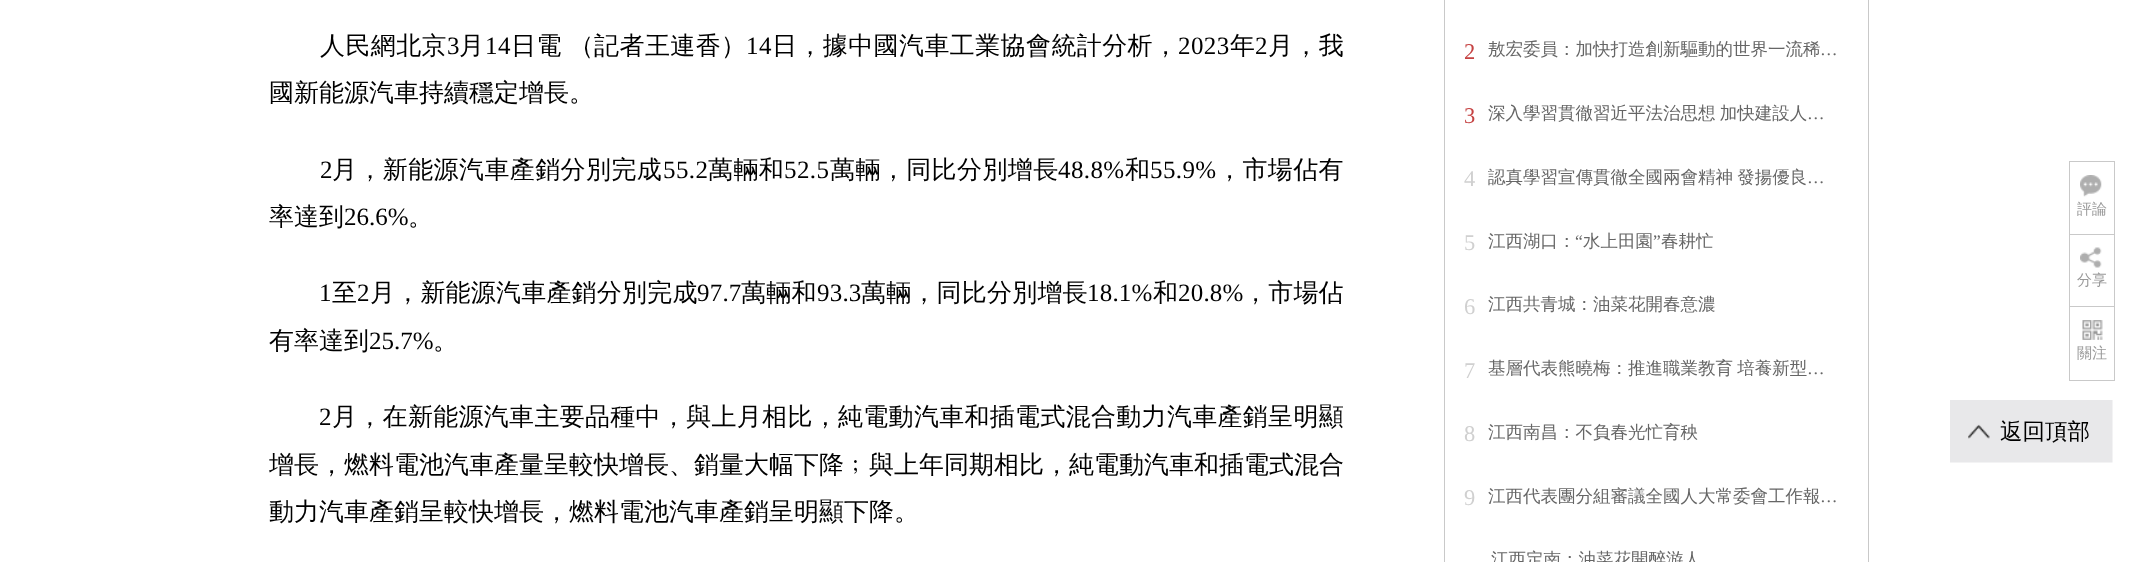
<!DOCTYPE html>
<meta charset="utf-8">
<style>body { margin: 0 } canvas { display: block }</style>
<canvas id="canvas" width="2137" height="562"></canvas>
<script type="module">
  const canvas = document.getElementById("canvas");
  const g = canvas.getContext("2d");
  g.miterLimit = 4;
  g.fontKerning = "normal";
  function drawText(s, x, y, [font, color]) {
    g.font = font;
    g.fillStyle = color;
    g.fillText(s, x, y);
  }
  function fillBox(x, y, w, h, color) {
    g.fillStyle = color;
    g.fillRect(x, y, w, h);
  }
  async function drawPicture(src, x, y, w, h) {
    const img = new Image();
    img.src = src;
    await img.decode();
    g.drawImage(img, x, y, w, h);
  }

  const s1 = ["500 25px WenQuanYi Zen Hei", "#000000"];
  const s2 = ["25px Liberation Serif", "#000000"];
  const s3 = ["22.5px Liberation Serif", "#C54242"];
  const s4 = ["500 17.5px WenQuanYi Zen Hei", "#666666"];
  const s5 = ["17.5px Liberation Serif", "#666666"];
  const s6 = ["22.5px Liberation Serif", "#D0D0D0"];
  const s7 = ["500 15px WenQuanYi Zen Hei", "#999999"];
  const s8 = ["500 22.5px WenQuanYi Zen Hei", "#000000"];

  fillBox(0, 0, 2137, 562, "#FFFFFF");
  g.letterSpacing = "0.4px";
  drawText("人民網北京", 320, 54, s1);
  drawText("3", 447, 54, s2);
  drawText("月", 459, 54, s1);
  drawText("14", 485, 54, s2);
  g.wordSpacing = "-1px";
  drawText("日電 （記者王連香）", 511, 54, s1);
  g.wordSpacing = "0px";
  drawText("14", 746, 54, s2);
  drawText("日，據中國汽車工業協會統計分析，", 772, 54, s1);
  drawText("2023", 1178, 54, s2);
  drawText("年", 1230, 54, s1);
  drawText("2", 1255, 54, s2);
  drawText("月，我", 1268, 54, s1);
  g.letterSpacing = "0px";
  drawText("國新能源汽車持續穩定增長。", 269, 101, s1);
  g.letterSpacing = "0.4px";
  drawText("2", 320, 178, s2);
  drawText("月，新能源汽車產銷分別完成", 332, 178, s1);
  drawText("55.2", 663, 178, s2);
  drawText("萬輛和", 708, 178, s1);
  drawText("52.5", 784, 178, s2);
  drawText("萬輛，同比分別增長", 830, 178, s1);
  drawText("48.8%", 1058, 178, s2);
  drawText("和", 1125, 178, s1);
  drawText("55.9%", 1150, 178, s2);
  drawText("，市場佔有", 1217, 178, s1);
  g.letterSpacing = "0px";
  drawText("率達到", 269, 225, s1);
  drawText("26.6%", 344, 225, s2);
  drawText("。", 408, 225, s1);
  g.letterSpacing = "0.2px";
  drawText("1", 319, 301, s2);
  drawText("至", 332, 301, s1);
  drawText("2", 357, 301, s2);
  drawText("月，新能源汽車產銷分別完成", 370, 301, s1);
  drawText("97.7", 697, 301, s2);
  drawText("萬輛和", 741, 301, s1);
  drawText("93.3", 817, 301, s2);
  drawText("萬輛，同比分別增長", 861, 301, s1);
  drawText("18.1%", 1087, 301, s2);
  drawText("和", 1153, 301, s1);
  drawText("20.8%", 1178, 301, s2);
  drawText("，市場佔", 1243, 301, s1);
  g.letterSpacing = "0px";
  drawText("有率達到", 269, 349, s1);
  drawText("25.7%", 369, 349, s2);
  drawText("。", 433, 349, s1);
  g.letterSpacing = "0.3px";
  drawText("2", 319, 425, s2);
  drawText("月，在新能源汽車主要品種中，與上月相比，純電動汽車和插電式混合動力汽車產銷呈明顯", 332, 425, s1);
  g.letterSpacing = "0px";
  drawText("增長，燃料電池汽車產量呈較快增長、銷量大幅下降﹔與上年同期相比，純電動汽車和插電式混合", 269, 473, s1);
  drawText("動力汽車產銷呈較快增長，燃料電池汽車產銷呈明顯下降。", 269, 520, s1);
  g.strokeStyle = "#C9C9C9";
  g.strokeRect(1444.5, -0.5, 424, 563);
  drawText("2", 1464, 59, s3);
  drawText("敖宏委員：加快打造創新驅動的世界一流稀", 1488, 55, s4);
  drawText("…", 1820, 55, s5);
  drawText("3", 1464, 123, s3);
  g.wordSpacing = "-1px";
  drawText("深入學習貫徹習近平法治思想 加快建設人", 1488, 119, s4);
  g.wordSpacing = "0px";
  drawText("…", 1807, 119, s5);
  drawText("4", 1464, 186, s6);
  g.wordSpacing = "-1px";
  drawText("認真學習宣傳貫徹全國兩會精神 發揚優良", 1488, 183, s4);
  g.wordSpacing = "0px";
  drawText("…", 1807, 183, s5);
  drawText("5", 1464, 250, s6);
  drawText("江西湖口：", 1488, 247, s4);
  drawText("“", 1575, 247, s5);
  drawText("水上田園", 1583, 247, s4);
  drawText("”", 1653, 247, s5);
  drawText("春耕忙", 1661, 247, s4);
  drawText("6", 1464, 314, s6);
  drawText("江西共青城：油菜花開春意濃", 1488, 310, s4);
  drawText("7", 1464, 378, s6);
  g.wordSpacing = "-1px";
  drawText("基層代表熊曉梅：推進職業教育 培養新型", 1488, 374, s4);
  g.wordSpacing = "0px";
  drawText("…", 1807, 374, s5);
  drawText("8", 1464, 441, s6);
  drawText("江西南昌：不負春光忙育秧", 1488, 438, s4);
  drawText("9", 1464, 505, s6);
  drawText("江西代表團分組審議全國人大常委會工作報", 1488, 502, s4);
  drawText("…", 1820, 502, s5);
  drawText("江西定南：油菜花開醉游人", 1491, 565, s4);
  g.save();
  g.beginPath();
  g.rect(2069, 161, 46, 73);
  g.clip();
  g.strokeRect(2069.5, 161.5, 45, 76);
  g.restore();
  await drawPicture("pic1.png", 2080, 175, 22, 22);
  drawText("評論", 2077, 214, s7);
  g.save();
  g.beginPath();
  g.rect(2069, 234, 46, 72);
  g.clip();
  g.strokeRect(2069.5, 234.5, 45, 74);
  g.restore();
  await drawPicture("pic2.png", 2080, 247, 22, 21);
  drawText("分享", 2077, 285, s7);
  g.strokeRect(2069.5, 306.5, 45, 74);
  await drawPicture("pic3.png", 2082, 320, 21, 20);
  drawText("關注", 2077, 358, s7);
  await drawPicture("pic4.png", 1950, 400, 163, 63);
  drawText("返回頂部", 2000, 439, s8);
</script>
